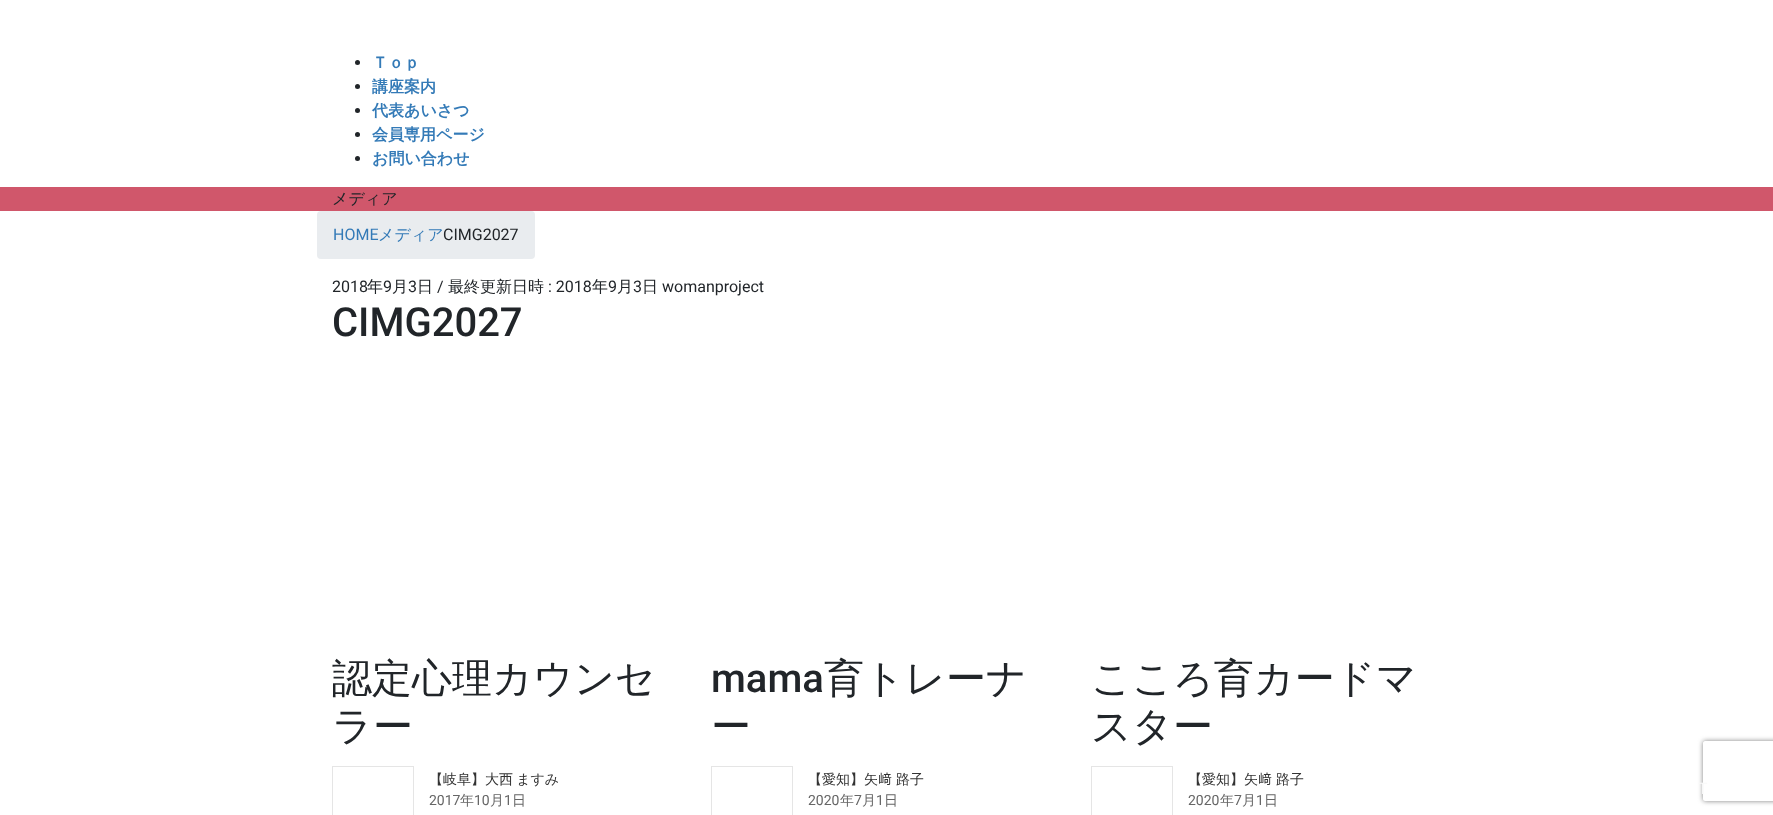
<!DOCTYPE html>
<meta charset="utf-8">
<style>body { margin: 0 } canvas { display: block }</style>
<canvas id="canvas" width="1773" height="815"></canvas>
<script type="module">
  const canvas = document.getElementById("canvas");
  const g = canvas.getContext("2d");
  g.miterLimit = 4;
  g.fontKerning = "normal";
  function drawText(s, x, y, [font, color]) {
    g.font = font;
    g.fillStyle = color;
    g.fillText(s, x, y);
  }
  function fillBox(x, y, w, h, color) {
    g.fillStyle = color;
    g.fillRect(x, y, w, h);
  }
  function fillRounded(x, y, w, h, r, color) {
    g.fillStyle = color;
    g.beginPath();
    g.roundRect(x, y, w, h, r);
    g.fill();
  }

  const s1 = ["bold 16px WenQuanYi Zen Hei", "#337AB7"];
  const s2 = ["500 16px WenQuanYi Zen Hei", "#212529"];
  const s3 = ["16px Roboto", "#337AB7"];
  const s4 = ["500 16px WenQuanYi Zen Hei", "#337AB7"];
  const s5 = ["16px Roboto", "#212529"];
  const s6 = ["500 40px Roboto", "#212529"];
  const s7 = ["500 40px WenQuanYi Zen Hei", "#212529"];
  const s8 = ["500 14px WenQuanYi Zen Hei", "#333333"];
  const s9 = ["14px Roboto", "#666666"];
  const s10 = ["500 14px WenQuanYi Zen Hei", "#666666"];
  const s11 = ["14px IPAPGothic", "#333333"];
  const s12 = ["16px Roboto", "#F9F9F9"];

  fillBox(0, 0, 1773, 815, "#FFFFFF");
  g.fillStyle = "#212529";
  g.beginPath();
  g.arc(357.5, 62.5, 2.5, 0, Math.PI * 2);
  g.fill();
  drawText("Ｔｏｐ", 372, 68, s1);
  g.fillStyle = "#212529";
  g.beginPath();
  g.arc(357.5, 86.5, 2.5, 0, Math.PI * 2);
  g.fill();
  drawText("講座案内", 372, 92, s1);
  g.fillStyle = "#212529";
  g.beginPath();
  g.arc(357.5, 110.5, 2.5, 0, Math.PI * 2);
  g.fill();
  drawText("代表あいさつ", 372, 116, s1);
  g.fillStyle = "#212529";
  g.beginPath();
  g.arc(357.5, 134.5, 2.5, 0, Math.PI * 2);
  g.fill();
  drawText("会員専用ページ", 372, 140, s1);
  g.fillStyle = "#212529";
  g.beginPath();
  g.arc(357.5, 158.5, 2.5, 0, Math.PI * 2);
  g.fill();
  drawText("お問い合わせ", 372, 164, s1);
  fillBox(0, 187, 1773, 24, "#D0576B");
  drawText("メディア", 332, 204, s2);
  fillRounded(317, 211, 218, 48, 4, "#E9ECEF");
  drawText("HOME", 333, 240, s3);
  drawText("メディア", 378, 240, s4);
  drawText("CIMG2027", 443, 240, s5);
  drawText("2018", 332, 292, s5);
  drawText("年", 367, 292, s2);
  drawText("9", 383, 292, s5);
  drawText("月", 392, 292, s2);
  drawText("3", 408, 292, s5);
  drawText("日", 417, 292, s2);
  drawText("/", 437, 292, s5);
  drawText("最終更新日時", 448, 292, s2);
  drawText(": 2018", 548, 292, s5);
  drawText("年", 592, 292, s2);
  drawText("9", 608, 292, s5);
  drawText("月", 617, 292, s2);
  drawText("3", 633, 292, s5);
  drawText("日", 642, 292, s2);
  drawText("womanproject", 662, 292, s5);
  drawText("CIMG2027", 332, 336, s6);
  drawText("認定心理カウンセ", 332, 692, s7);
  drawText("ラー", 332, 740, s7);
  g.strokeStyle = "#E5E5E5";
  g.strokeRect(332.5, 766.5, 81, 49);
  g.wordSpacing = "-1px";
  drawText("【岐阜】大西 ますみ", 429, 784, s8);
  g.wordSpacing = "0px";
  drawText("2017", 429, 805, s9);
  drawText("年", 460, 805, s10);
  drawText("10", 474, 805, s9);
  drawText("月", 490, 805, s10);
  drawText("1", 504, 805, s9);
  drawText("日", 512, 805, s10);
  drawText("mama", 711, 692, s6);
  drawText("育トレーナ", 824, 692, s7);
  drawText("ー", 711, 740, s7);
  g.strokeRect(711.5, 766.5, 81, 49);
  drawText("【愛知】矢", 808, 784, s8);
  drawText("﨑", 878, 784, s11);
  drawText("路子", 896, 784, s8);
  drawText("2020", 808, 805, s9);
  drawText("年", 840, 805, s10);
  drawText("7", 854, 805, s9);
  drawText("月", 862, 805, s10);
  drawText("1", 876, 805, s9);
  drawText("日", 884, 805, s10);
  drawText("こころ育カードマ", 1091, 692, s7);
  drawText("スター", 1091, 740, s7);
  g.strokeRect(1091.5, 766.5, 81, 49);
  drawText("【愛知】矢", 1188, 784, s8);
  drawText("﨑", 1258, 784, s11);
  drawText("路子", 1276, 784, s8);
  drawText("2020", 1188, 805, s9);
  drawText("年", 1220, 805, s10);
  drawText("7", 1234, 805, s9);
  drawText("月", 1242, 805, s10);
  drawText("1", 1256, 805, s9);
  drawText("日", 1264, 805, s10);
  g.save();
  g.beginPath();
  g.moveTo(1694, 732);
  g.lineTo(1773, 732);
  g.lineTo(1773, 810);
  g.lineTo(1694, 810);
  g.closePath();
  g.moveTo(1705, 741);
  g.lineTo(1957, 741);
  g.bezierCurveTo(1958, 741, 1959, 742, 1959, 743);
  g.lineTo(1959, 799);
  g.bezierCurveTo(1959, 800, 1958, 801, 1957, 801);
  g.lineTo(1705, 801);
  g.bezierCurveTo(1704, 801, 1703, 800, 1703, 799);
  g.lineTo(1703, 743);
  g.bezierCurveTo(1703, 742, 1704, 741, 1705, 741);
  g.closePath();
  g.clip("evenodd");
  g.fillStyle = "#808080";
  g.filter = "blur(2.5px)";
  g.beginPath();
  g.roundRect(1703, 741, 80, 60, 2);
  g.fill();
  g.filter = "none";
  g.restore();
  drawText("T", 1698, 794, s12);
</script>
